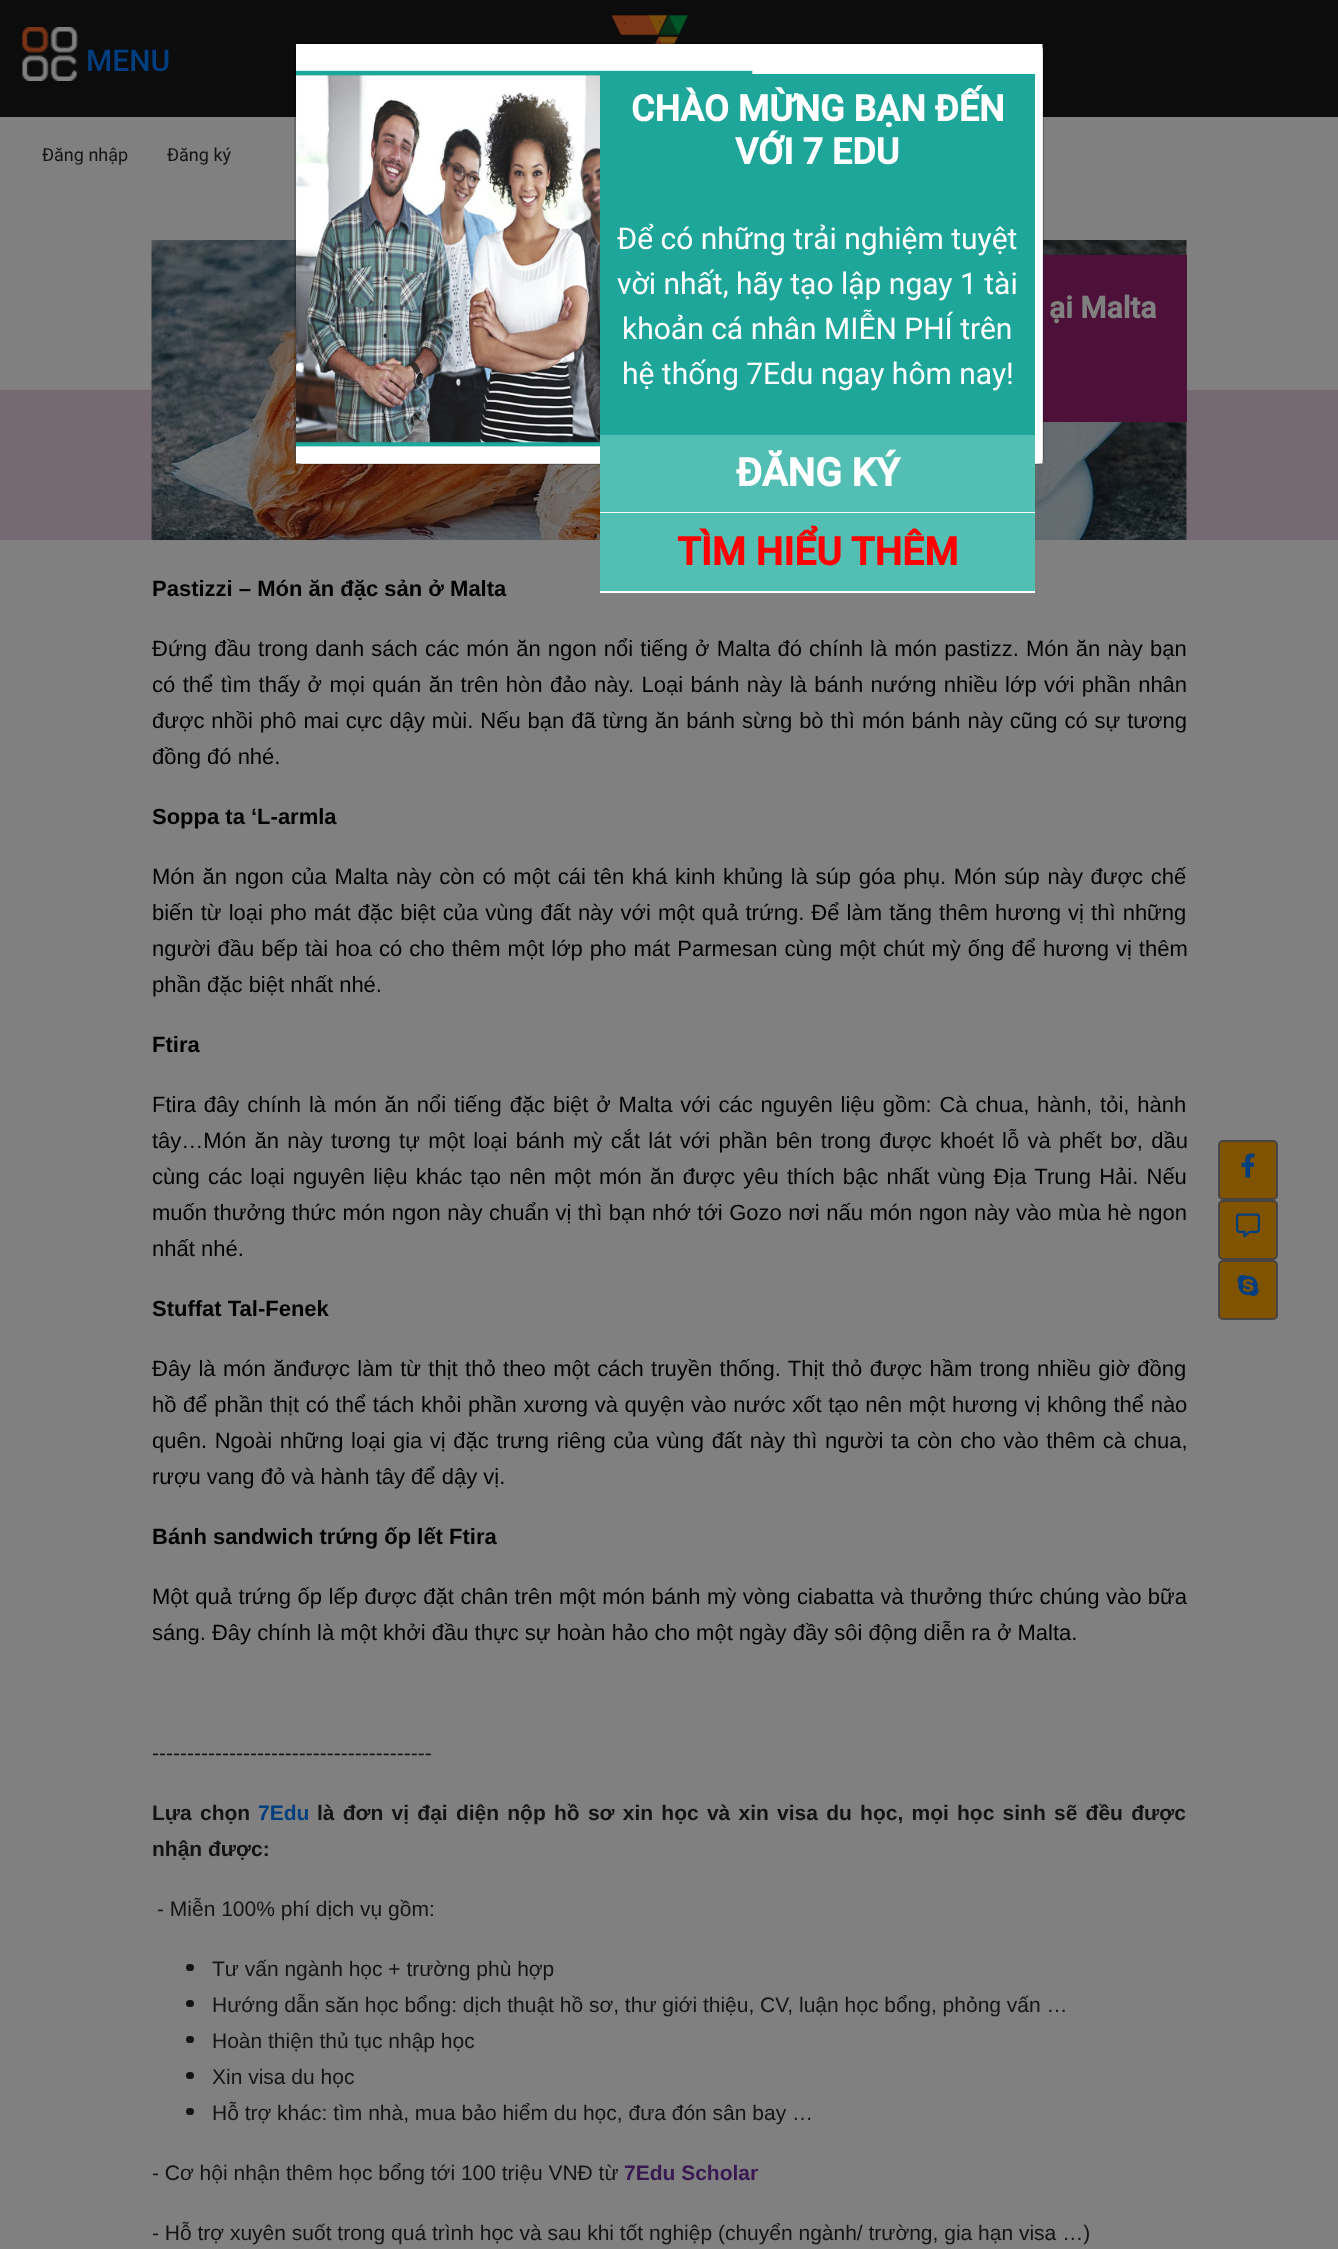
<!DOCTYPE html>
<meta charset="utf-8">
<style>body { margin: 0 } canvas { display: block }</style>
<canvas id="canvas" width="1338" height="2249"></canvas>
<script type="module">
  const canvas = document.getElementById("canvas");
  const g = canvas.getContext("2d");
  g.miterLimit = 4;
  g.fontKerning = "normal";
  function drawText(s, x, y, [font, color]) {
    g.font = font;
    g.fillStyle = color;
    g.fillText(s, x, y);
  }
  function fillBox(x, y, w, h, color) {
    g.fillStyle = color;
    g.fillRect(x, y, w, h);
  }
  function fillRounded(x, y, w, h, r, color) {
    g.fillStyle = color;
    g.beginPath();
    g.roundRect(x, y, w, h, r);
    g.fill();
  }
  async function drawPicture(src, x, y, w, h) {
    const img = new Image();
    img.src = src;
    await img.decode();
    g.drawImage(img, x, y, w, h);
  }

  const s1 = ["500 30px Roboto", "#003E80"];
  const s2 = ["18px Roboto", "#111315"];
  const s3 = ["bold 30px Roboto", "#808080"];
  const s4 = ["bold 22px Liberation Sans", "#000000"];
  const s5 = ["22px Liberation Sans", "#000000"];
  const s6 = ["21px Liberation Sans", "#111315"];
  const s7 = ["bold 21px Liberation Sans", "#111315"];
  const s8 = ["bold 21px Liberation Sans", "#003E80"];
  const s9 = ["bold 21px Liberation Sans", "#381850"];
  const s10 = ["bold 36px Roboto", "#FFFFFF"];
  const s11 = ["30px Roboto", "#FFFFFF"];
  const s12 = ["bold 39px Roboto", "#FFFFFF"];
  const s13 = ["bold 39px Roboto", "#FF0000"];

  fillBox(0, 0, 1338, 2249, "#808080");
  fillBox(0, 0, 1338, 117, "#0C0C0C");
  await drawPicture("pic1.png", 612, 15, 76, 29);
  await drawPicture("pic2.png", 22, 27, 56, 54);
  drawText("MENU", 86, 71, s1);
  drawText("Đăng nhập", 42, 161, s2);
  drawText("Đăng ký", 167, 161, s2);
  fillBox(0, 390, 1338, 150, "#756A72");
  await drawPicture("pic3.png", 151, 240, 1036, 300);
  fillBox(1043, 255, 144, 167, "#4D1139");
  drawText("ại Malta", 1049, 318, s3);
  drawText("Pastizzi – Món ăn đặc sản ở Malta", 152, 596, s4);
  g.wordSpacing = "1px";
  drawText("Đứng đầu trong danh sách các món ăn ngon nổi tiếng ở Malta đó chính là món pastizz. Món ăn này bạn", 152, 656, s5);
  g.wordSpacing = "1.3px";
  drawText("có thể tìm thấy ở mọi quán ăn trên hòn đảo này. Loại bánh này là bánh nướng nhiều lớp với phần nhân", 152, 692, s5);
  g.wordSpacing = "0.8px";
  drawText("được nhồi phô mai cực dậy mùi. Nếu bạn đã từng ăn bánh sừng bò thì món bánh này cũng có sự tương", 152, 728, s5);
  g.wordSpacing = "0px";
  drawText("đồng đó nhé.", 152, 764, s5);
  drawText("Soppa ta ‘L-armla", 152, 824, s4);
  g.wordSpacing = "1.6px";
  drawText("Món ăn ngon của Malta này còn có một cái tên khá kinh khủng là súp góa phụ. Món súp này được chế", 152, 884, s5);
  g.wordSpacing = "1px";
  drawText("biến từ loại pho mát đặc biệt của vùng đất này với một quả trứng. Để làm tăng thêm hương vị thì những", 152, 920, s5);
  g.wordSpacing = "0.9px";
  drawText("người đầu bếp tài hoa có cho thêm một lớp pho mát Parmesan cùng một chút mỳ ống để hương vị thêm", 152, 956, s5);
  g.wordSpacing = "0px";
  drawText("phần đặc biệt nhất nhé.", 152, 992, s5);
  drawText("Ftira", 152, 1052, s4);
  g.wordSpacing = "1.75px";
  drawText("Ftira đây chính là món ăn nổi tiếng đặc biệt ở Malta với các nguyên liệu gồm: Cà chua, hành, tỏi, hành", 152, 1112, s5);
  g.wordSpacing = "2.2px";
  drawText("tây…Món ăn này tương tự một loại bánh mỳ cắt lát với phần bên trong được khoét lỗ và phết bơ, dầu", 152, 1148, s5);
  g.wordSpacing = "2.1px";
  drawText("cùng các loại nguyên liệu khác tạo nên một món ăn được yêu thích bậc nhất vùng Địa Trung Hải. Nếu", 152, 1184, s5);
  g.wordSpacing = "0.35px";
  drawText("muốn thưởng thức món ngon này chuẩn vị thì bạn nhớ tới Gozo nơi nấu món ngon này vào mùa hè ngon", 152, 1220, s5);
  g.wordSpacing = "0px";
  drawText("nhất nhé.", 152, 1256, s5);
  drawText("Stuffat Tal-Fenek", 152, 1316, s4);
  g.wordSpacing = "1.25px";
  drawText("Đây là món ănđược làm từ thịt thỏ theo một cách truyền thống. Thịt thỏ được hầm trong nhiều giờ đồng", 152, 1376, s5);
  g.wordSpacing = "0.5px";
  drawText("hồ để phần thịt có thể tách khỏi phần xương và quyện vào nước xốt tạo nên một hương vị không thể nào", 152, 1412, s5);
  g.wordSpacing = "1.5px";
  drawText("quên. Ngoài những loại gia vị đặc trưng riêng của vùng đất này thì người ta còn cho vào thêm cà chua,", 152, 1448, s5);
  g.wordSpacing = "0px";
  drawText("rượu vang đỏ và hành tây để dậy vị.", 152, 1484, s5);
  drawText("Bánh sandwich trứng ốp lết Ftira", 152, 1544, s4);
  g.wordSpacing = "0.4px";
  drawText("Một quả trứng ốp lếp được đặt chân trên một món bánh mỳ vòng ciabatta và thưởng thức chúng vào bữa", 152, 1604, s5);
  g.wordSpacing = "0px";
  drawText("sáng. Đây chính là một khởi đầu thực sự hoàn hảo cho một ngày đầy sôi động diễn ra ở Malta.", 152, 1640, s5);
  drawText("----------------------------------------", 152, 1760, s6);
  g.wordSpacing = "2.4px";
  drawText("Lựa chọn", 152, 1820, s7);
  g.wordSpacing = "0px";
  drawText("7Edu", 258, 1820, s8);
  g.wordSpacing = "2.4px";
  drawText("là đơn vị đại diện nộp hồ sơ xin học và xin visa du học, mọi học sinh sẽ đều được", 317, 1820, s7);
  g.wordSpacing = "0px";
  drawText("nhận được:", 152, 1856, s7);
  drawText("- Miễn 100% phí dịch vụ gồm:", 157, 1916, s6);
  fillRounded(186, 1964, 8, 7, 3.5, "#111315");
  drawText("Tư vấn ngành học + trường phù hợp", 212, 1976, s6);
  fillRounded(186, 2000, 8, 7, 3.5, "#111315");
  drawText("Hướng dẫn săn học bổng: dịch thuật hồ sơ, thư giới thiệu, CV, luận học bổng, phỏng vấn …", 212, 2012, s6);
  fillRounded(186, 2036, 8, 7, 3.5, "#111315");
  drawText("Hoàn thiện thủ tục nhập học", 212, 2048, s6);
  fillRounded(186, 2072, 8, 7, 3.5, "#111315");
  drawText("Xin visa du học", 212, 2084, s6);
  fillRounded(186, 2108, 8, 7, 3.5, "#111315");
  drawText("Hỗ trợ khác: tìm nhà, mua bảo hiểm du học, đưa đón sân bay …", 212, 2120, s6);
  drawText("- Cơ hội nhận thêm học bổng tới 100 triệu VNĐ từ", 152, 2180, s6);
  drawText("7Edu Scholar", 624, 2180, s9);
  drawText("- Hỗ trợ xuyên suốt trong quá trình học và sau khi tốt nghiệp (chuyển ngành/ trường, gia hạn visa …)", 152, 2240, s6);
  fillRounded(296, 44, 747, 420, 6, "#FFFFFF");
  g.beginPath();
  g.roundRect(295, 43, 748, 421, 7);
  g.strokeStyle = "rgba(0, 0, 0, 0.2)";
  g.lineWidth = 2;
  g.stroke();
  await drawPicture("pic4.png", 296, 44, 747, 420);
  fillBox(600, 74, 435, 361, "#1EA69A");
  drawText("CHÀO MỪNG BẠN ĐẾN", 631, 121, s10);
  drawText("VỚI 7 EDU", 735, 164, s10);
  drawText("Để có những trải nghiệm tuyệt", 617, 249, s11);
  drawText("vời nhất, hãy tạo lập ngay 1 tài", 617, 294, s11);
  drawText("khoản cá nhân MIỄN PHÍ trên", 622, 339, s11);
  drawText("hệ thống 7Edu ngay hôm nay!", 622, 384, s11);
  fillBox(600, 435, 435, 77, "#53BEB4");
  fillBox(600, 512, 435, 1, "#FFFFFF");
  drawText("ĐĂNG KÝ", 736, 486, s12);
  fillBox(600, 513, 435, 78, "#53BEB4");
  fillBox(600, 591, 435, 2, "#FFFFFF");
  drawText("TÌM HIỂU THÊM", 677, 565, s13);
  g.fillStyle = "#805300";
  g.beginPath();
  g.roundRect(1219, 1141, 58, 58, 4);
  g.fill();
  g.strokeStyle = "#494343";
  g.stroke();
  await drawPicture("pic5.png", 1241, 1153, 14, 25);
  g.beginPath();
  g.roundRect(1219, 1201, 58, 58, 4);
  g.fill();
  g.stroke();
  await drawPicture("pic6.png", 1236, 1213, 24, 25);
  g.beginPath();
  g.roundRect(1219, 1261, 58, 58, 4);
  g.fill();
  g.stroke();
  await drawPicture("pic7.png", 1237, 1275, 22, 21);
</script>
